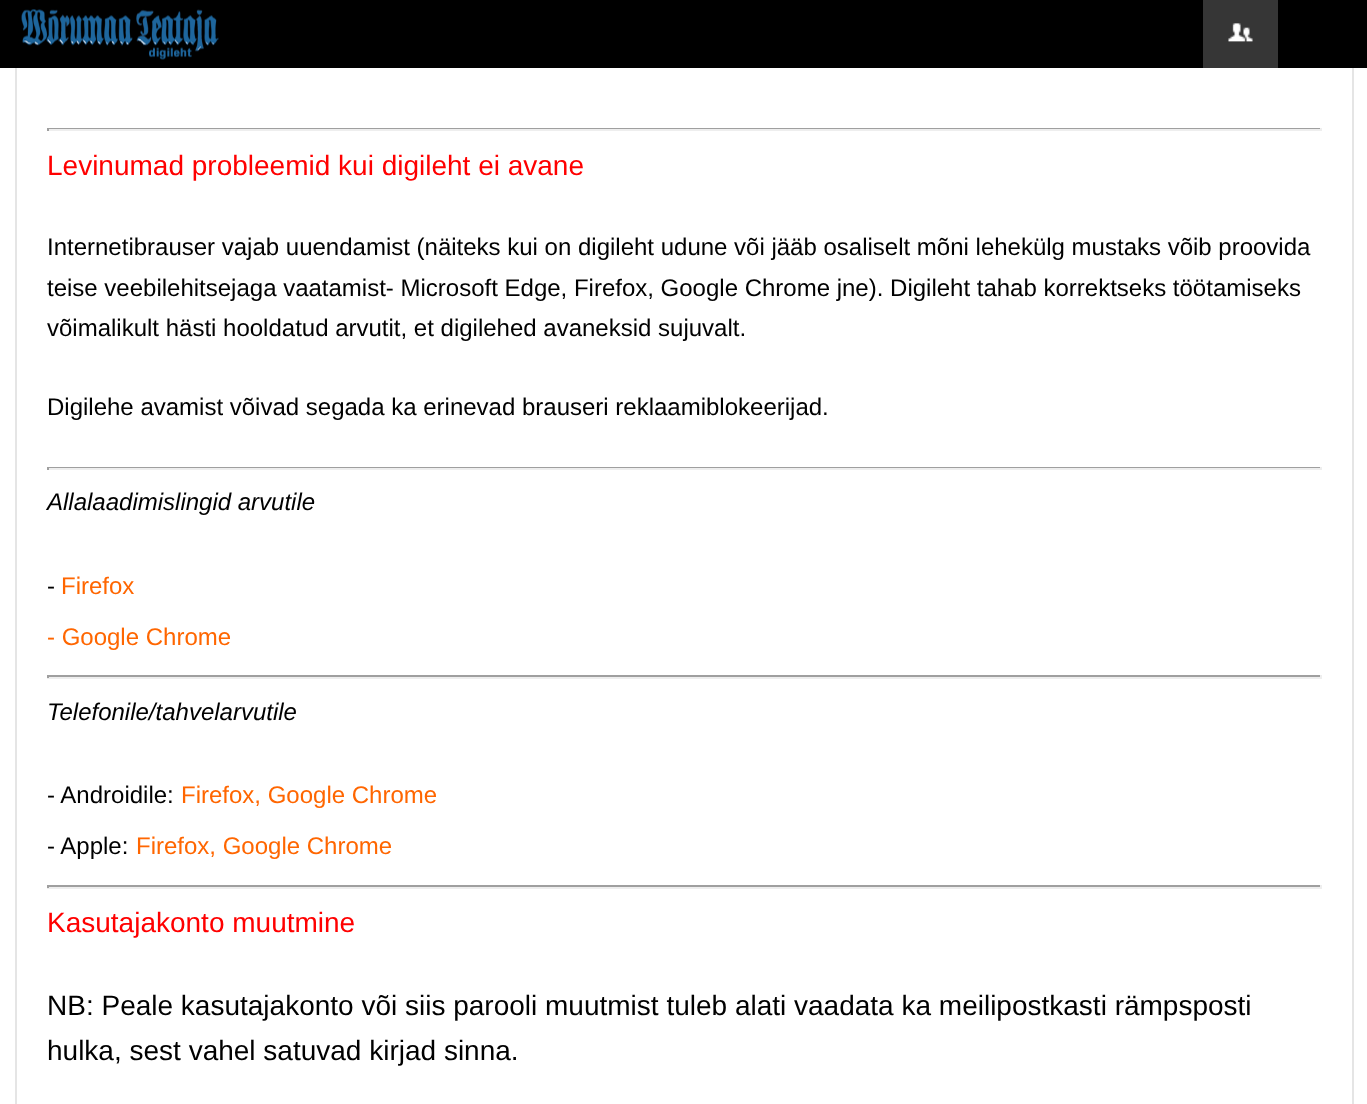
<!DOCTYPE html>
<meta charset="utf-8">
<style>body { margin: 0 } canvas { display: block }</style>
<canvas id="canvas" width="1367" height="1104"></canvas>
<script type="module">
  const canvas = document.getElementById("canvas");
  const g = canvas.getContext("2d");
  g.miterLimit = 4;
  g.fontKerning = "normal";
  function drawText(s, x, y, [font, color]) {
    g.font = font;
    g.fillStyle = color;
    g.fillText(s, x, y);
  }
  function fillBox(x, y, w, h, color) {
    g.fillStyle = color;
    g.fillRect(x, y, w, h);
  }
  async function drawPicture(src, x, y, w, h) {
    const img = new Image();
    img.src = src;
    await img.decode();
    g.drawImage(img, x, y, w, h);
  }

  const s1 = ["28px Liberation Sans", "#FF0000"];
  const s2 = ["24px Liberation Sans", "#000000"];
  const s3 = ["italic 24px Liberation Sans", "#000000"];
  const s4 = ["24px Liberation Sans", "#FF6600"];
  const s5 = ["28px Liberation Sans", "#000000"];

  fillBox(0, 0, 1367, 1104, "#FFFFFF");
  fillBox(0, 0, 1367, 68, "#000000");
  await drawPicture("pic1.png", 21, 9, 198, 51);
  fillBox(1203, 0, 75, 68, "#363636");
  await drawPicture("pic2.png", 1228, 23, 25, 19);
  fillBox(1352, 68, 2, 1036, "#E5E5E5");
  fillBox(15, 68, 2, 1036, "#E5E5E5");
  fillBox(47, 128, 1275, 1, "#9F9F9F");
  fillBox(1320, 128, 2, 3, "#EEEEEE");
  fillBox(47, 129, 1275, 2, "#EEEEEE");
  fillBox(47, 128, 2, 3, "#9F9F9F");
  drawText("Levinumad probleemid kui digileht ei avane", 47, 175, s1);
  drawText("Internetibrauser vajab uuendamist (näiteks kui on digileht udune või jääb osaliselt mõni lehekülg mustaks võib proovida", 47, 255, s2);
  drawText("teise veebilehitsejaga vaatamist- Microsoft Edge, Firefox, Google Chrome jne). Digileht tahab korrektseks töötamiseks", 47, 296, s2);
  drawText("võimalikult hästi hooldatud arvutit, et digilehed avaneksid sujuvalt.", 47, 336, s2);
  drawText("Digilehe avamist võivad segada ka erinevad brauseri reklaamiblokeerijad.", 47, 415, s2);
  fillBox(47, 467, 1275, 1, "#9F9F9F");
  fillBox(1320, 467, 2, 3, "#EEEEEE");
  fillBox(47, 468, 1275, 2, "#EEEEEE");
  fillBox(47, 467, 2, 3, "#9F9F9F");
  drawText("Allalaadimislingid arvutile", 47, 510, s3);
  drawText("-", 47, 594, s2);
  drawText("Firefox", 61, 594, s4);
  drawText("- Google Chrome", 47, 645, s4);
  fillBox(47, 675, 1275, 2, "#9F9F9F");
  fillBox(1320, 675, 2, 3, "#EEEEEE");
  fillBox(47, 677, 1275, 2, "#EEEEEE");
  fillBox(47, 675, 2, 3, "#9F9F9F");
  drawText("Telefonile/tahvelarvutile", 47, 720, s3);
  drawText("- Androidile:", 47, 803, s2);
  drawText("Firefox, Google Chrome", 181, 803, s4);
  drawText("- Apple:", 47, 854, s2);
  drawText("Firefox, Google Chrome", 136, 854, s4);
  fillBox(47, 885, 1275, 2, "#9F9F9F");
  fillBox(1320, 885, 2, 3, "#EEEEEE");
  fillBox(47, 887, 1275, 2, "#EEEEEE");
  fillBox(47, 885, 2, 3, "#9F9F9F");
  drawText("Kasutajakonto muutmine", 47, 932, s1);
  drawText("NB: Peale kasutajakonto või siis parooli muutmist tuleb alati vaadata ka meilipostkasti rämpsposti", 47, 1015, s5);
  drawText("hulka, sest vahel satuvad kirjad sinna.", 47, 1060, s5);
</script>
